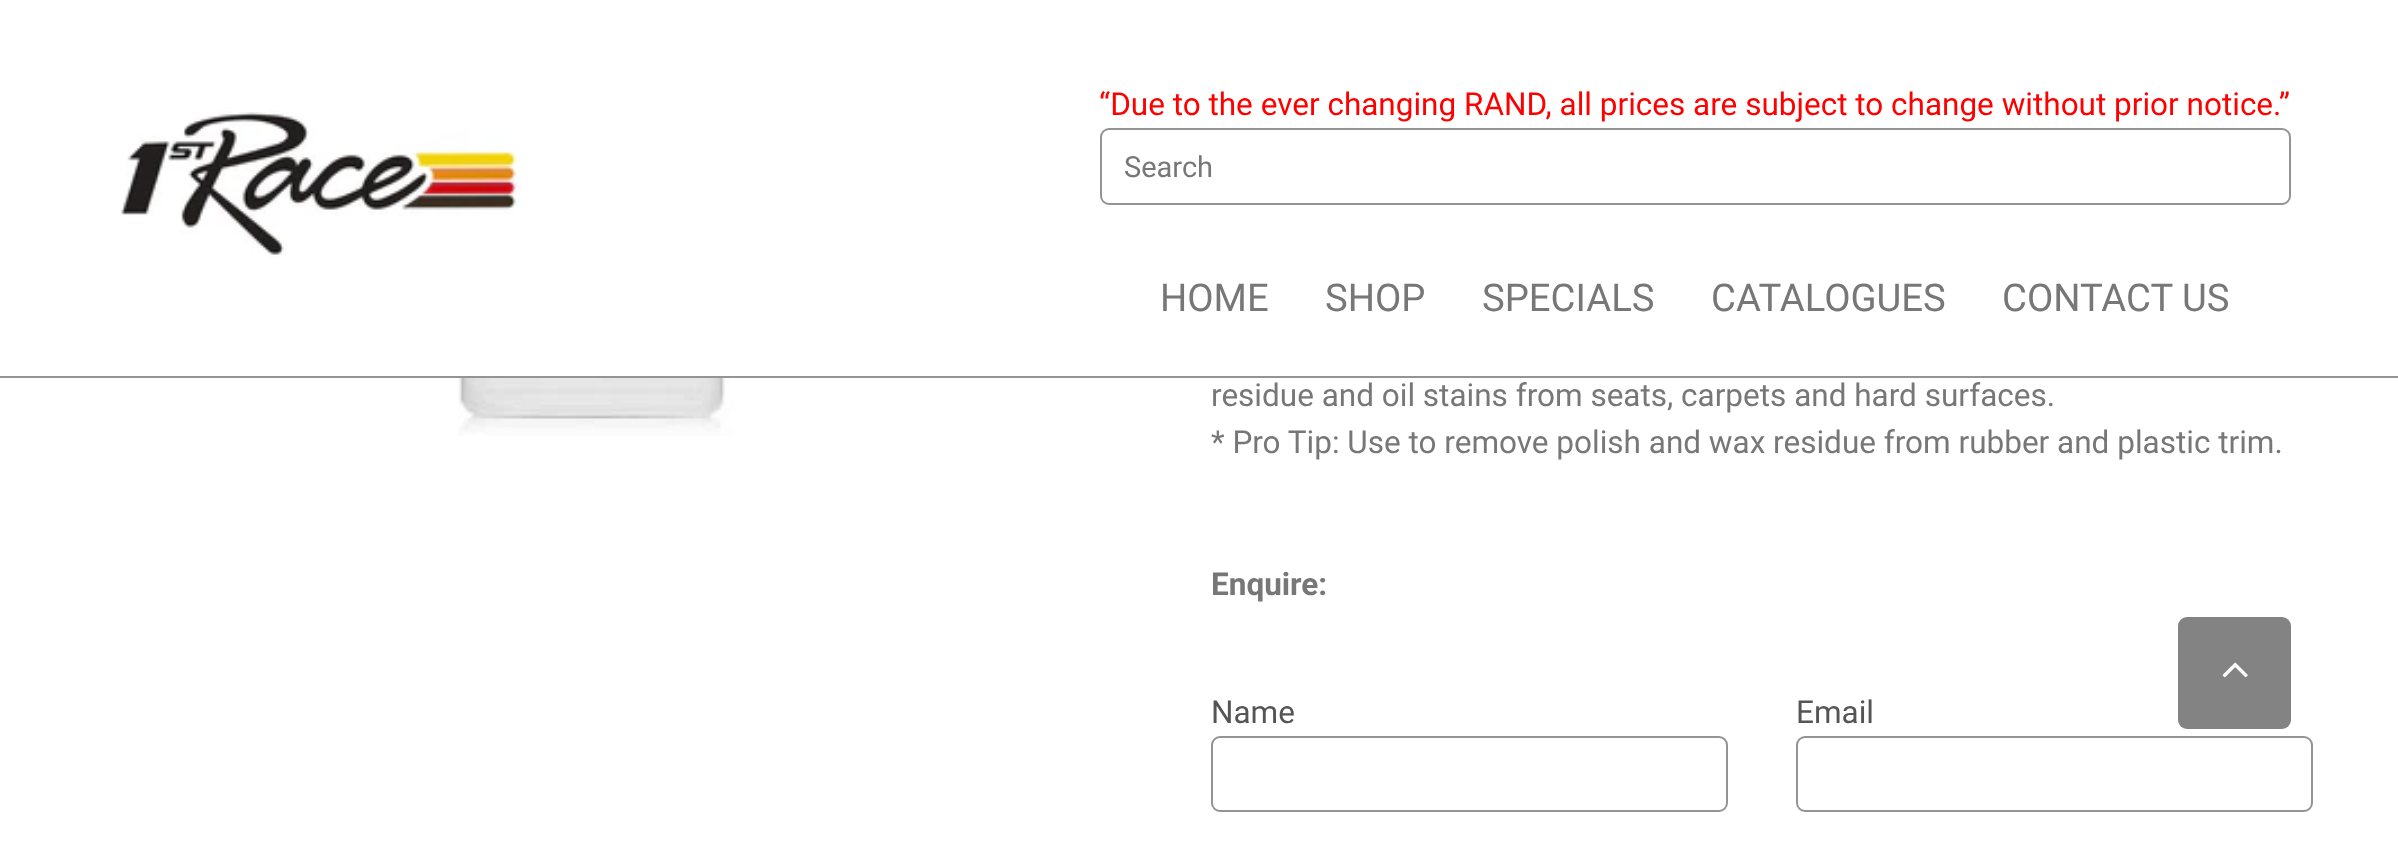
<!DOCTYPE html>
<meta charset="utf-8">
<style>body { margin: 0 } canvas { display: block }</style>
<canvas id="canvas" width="2398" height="863"></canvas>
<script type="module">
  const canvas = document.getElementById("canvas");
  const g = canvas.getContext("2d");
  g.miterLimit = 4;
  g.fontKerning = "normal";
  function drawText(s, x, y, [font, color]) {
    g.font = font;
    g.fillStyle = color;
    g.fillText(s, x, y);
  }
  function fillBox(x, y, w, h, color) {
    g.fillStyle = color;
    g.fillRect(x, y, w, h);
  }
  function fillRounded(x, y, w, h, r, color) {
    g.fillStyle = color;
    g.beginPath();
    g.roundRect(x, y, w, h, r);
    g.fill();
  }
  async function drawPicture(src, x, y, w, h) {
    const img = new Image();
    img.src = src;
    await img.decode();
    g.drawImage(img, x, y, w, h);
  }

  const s1 = ["31.5px Roboto", "#FF0000"];
  const s2 = ["29px Roboto", "#777777"];
  const s3 = ["38.25px Roboto", "#777777"];
  const s4 = ["31.5px Roboto", "#777777"];
  const s5 = ["bold 31.5px Roboto", "#777777"];
  const s6 = ["31.5px Roboto", "#555555"];

  fillBox(0, 0, 2398, 863, "#FFFFFF");
  g.fillStyle = "#949494";
  g.beginPath();
  g.moveTo(0, 376);
  g.lineTo(0, 378);
  g.lineTo(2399, 378);
  g.lineTo(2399, 2);
  g.lineTo(2398, 2);
  g.lineTo(2398, 376);
  g.closePath();
  g.fill();
  await drawPicture("pic1.png", 121, 111, 401, 147);
  drawText("“Due to the ever changing RAND, all prices are subject to change without prior notice.”", 1099, 115, s1);
  g.beginPath();
  g.roundRect(1101, 129, 1189, 75, 8);
  g.strokeStyle = "#949494";
  g.lineWidth = 2;
  g.stroke();
  drawText("Search", 1124, 177, s2);
  drawText("HOME", 1160, 311, s3);
  drawText("SHOP", 1325, 311, s3);
  drawText("SPECIALS", 1482, 311, s3);
  drawText("CATALOGUES", 1711, 311, s3);
  drawText("CONTACT US", 2002, 311, s3);
  await drawPicture("pic2.png", 458, 378, 277, 58);
  drawText("residue and oil stains from seats, carpets and hard surfaces.", 1211, 406, s4);
  drawText("* Pro Tip: Use to remove polish and wax residue from rubber and plastic trim.", 1211, 453, s4);
  drawText("Enquire:", 1211, 595, s5);
  drawText("Name", 1211, 723, s6);
  g.beginPath();
  g.roundRect(1212, 737, 515, 74, 8);
  g.stroke();
  drawText("Email", 1796, 723, s6);
  g.beginPath();
  g.roundRect(1797, 737, 515, 74, 8);
  g.stroke();
  fillRounded(2178, 617, 113, 112, 9, "#838383");
  await drawPicture("pic3.png", 2222, 662, 26, 16);
</script>
